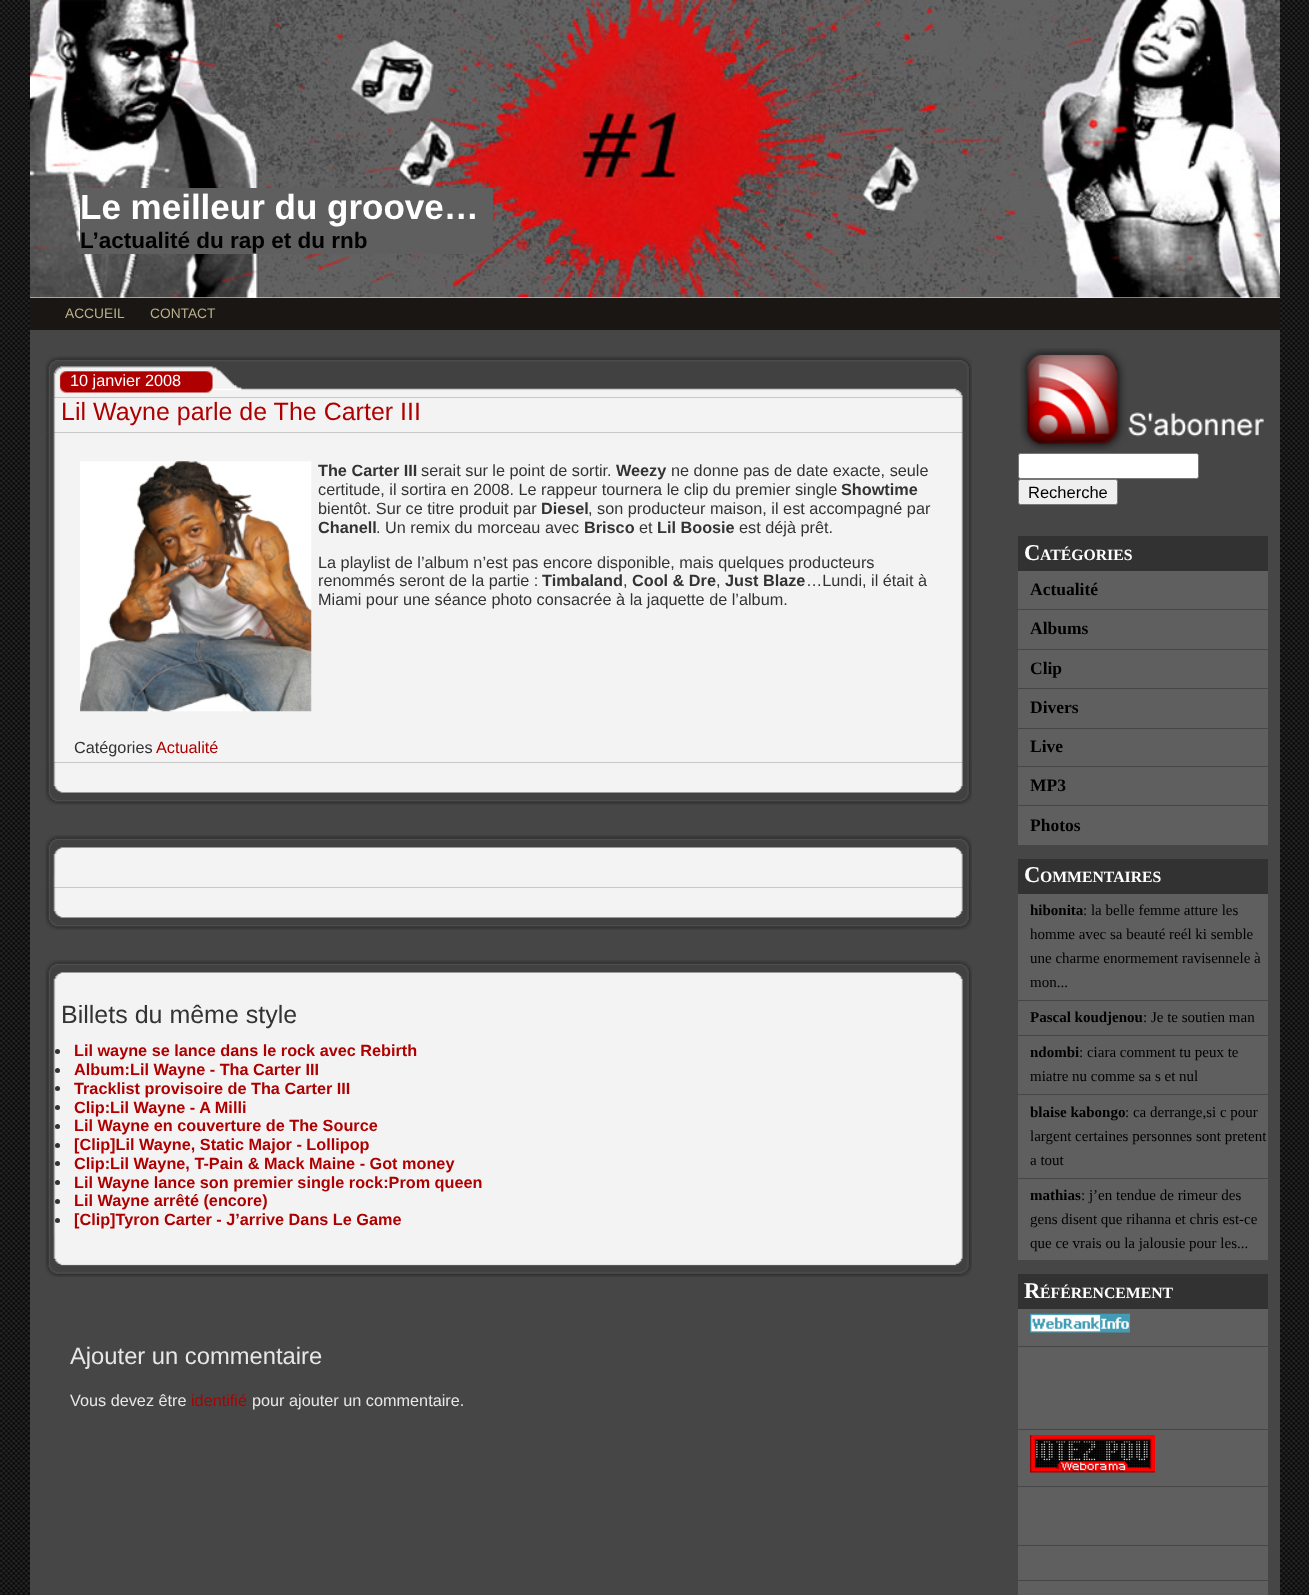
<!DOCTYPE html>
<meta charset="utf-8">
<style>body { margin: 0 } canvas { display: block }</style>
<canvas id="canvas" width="1309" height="1595"></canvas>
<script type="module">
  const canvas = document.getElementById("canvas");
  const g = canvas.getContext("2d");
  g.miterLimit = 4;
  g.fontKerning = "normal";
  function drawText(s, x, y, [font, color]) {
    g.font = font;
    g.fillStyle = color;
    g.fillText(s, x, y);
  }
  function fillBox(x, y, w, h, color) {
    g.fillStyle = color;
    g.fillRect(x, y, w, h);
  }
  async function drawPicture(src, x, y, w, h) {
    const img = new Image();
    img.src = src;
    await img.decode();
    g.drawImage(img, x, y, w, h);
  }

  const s1 = ["bold 35px Liberation Sans", "#FFFFFF"];
  const s2 = ["bold 22.5px Liberation Sans", "#000000"];
  const s3 = ["13.75px Liberation Sans", "#B8AF8B"];
  const s4 = ["16.25px Liberation Sans", "#FFFFFF"];
  const s5 = ["25px Liberation Sans", "#AE0000"];
  const s6 = ["bold 16.25px Liberation Sans", "#333333"];
  const s7 = ["16.25px Liberation Sans", "#333333"];
  const s8 = ["16.25px Liberation Sans", "#AE0000"];
  const s9 = ["25px Liberation Sans", "#333333"];
  const s10 = ["bold 16.25px Liberation Sans", "#AE0000"];
  const s11 = ["23.75px Liberation Sans", "#E7E7E7"];
  const s12 = ["16.25px Liberation Sans", "#E7E7E7"];
  const s13 = ["16.5px Liberation Sans", "#000000"];
  const s14 = ["bold 22.5px Liberation Serif", "#FFFFFF"];
  const s15 = ["bold 15.75px Liberation Serif", "#FFFFFF"];
  const s16 = ["bold 17.5px Liberation Serif", "#000000"];
  const s17 = ["bold 15px Liberation Serif", "#000000"];
  const s18 = ["15px Liberation Serif", "#000000"];

  fillBox(0, 0, 1309, 1595, "#FFFFFF");
  await drawPicture("pic1.png", 0, 0, 1309, 1595);
  fillBox(30, 297, 1250, 1, "#FFFFFF");
  await drawPicture("pic2.png", 30, 0, 1250, 298);
  fillBox(80, 188, 413, 66, "#5F5F5F");
  drawText("Le meilleur du groove…", 80, 219, s1);
  drawText("L’actualité du rap et du rnb", 80, 248, s2);
  fillBox(30, 298, 1250, 32, "#1A1613");
  drawText("ACCUEIL", 65, 318, s3);
  drawText("CONTACT", 150, 318, s3);
  fillBox(30, 330, 1250, 1265, "#464646");
  await drawPicture("pic3.png", 45, 356, 927, 42);
  drawText("10 janvier 2008", 70, 386, s4);
  await drawPicture("pic4.png", 45, 397, 927, 36);
  drawText("Lil Wayne parle de The Carter III", 61, 420, s5);
  await drawPicture("pic5.png", 45, 432, 927, 331);
  await drawPicture("pic6.png", 80, 461, 232, 251);
  drawText("The Carter III", 318, 476, s6);
  drawText("serait sur le point de sortir.", 421, 476, s7);
  drawText("Weezy", 616, 476, s6);
  drawText("ne donne pas de date exacte, seule", 671, 476, s7);
  drawText("certitude, il sortira en 2008. Le rappeur tournera le clip du premier single", 318, 495, s7);
  drawText("Showtime", 841, 495, s6);
  drawText("bientôt. Sur ce titre produit par", 318, 514, s7);
  drawText("Diesel", 541, 514, s6);
  drawText(", son producteur maison, il est accompagné par", 588, 514, s7);
  drawText("Chanell", 318, 533, s6);
  drawText(". Un remix du morceau avec", 376, 533, s7);
  drawText("Brisco", 584, 533, s6);
  drawText("et", 639, 533, s7);
  drawText("Lil Boosie", 657, 533, s6);
  drawText("est déjà prêt.", 739, 533, s7);
  drawText("La playlist de l’album n’est pas encore disponible, mais quelques producteurs", 318, 568, s7);
  drawText("renommés seront de la partie :", 318, 586, s7);
  drawText("Timbaland", 542, 586, s6);
  drawText(",", 623, 586, s7);
  drawText("Cool & Dre", 632, 586, s6);
  drawText(",", 716, 586, s7);
  drawText("Just Blaze", 725, 586, s6);
  drawText("…Lundi, il était à", 806, 586, s7);
  drawText("Miami pour une séance photo consacrée à la jaquette de l’album.", 318, 605, s7);
  drawText("Catégories", 74, 753, s7);
  drawText("Actualité", 156, 753, s8);
  await drawPicture("pic7.png", 45, 762, 927, 43);
  await drawPicture("pic8.png", 45, 835, 927, 40);
  await drawPicture("pic9.png", 45, 875, 927, 13);
  await drawPicture("pic7.png", 45, 887, 927, 43);
  await drawPicture("pic8.png", 45, 960, 927, 40);
  await drawPicture("pic10.png", 45, 1000, 927, 35);
  drawText("Billets du même style", 61, 1023, s9);
  await drawPicture("pic11.png", 45, 1035, 927, 200);
  g.beginPath();
  g.arc(57.5, 1051.5, 2.5, 0, Math.PI * 2);
  g.fill();
  drawText("Lil wayne se lance dans le rock avec Rebirth", 74, 1056, s10);
  g.fillStyle = "#333333";
  g.beginPath();
  g.arc(57.5, 1070.5, 2.5, 0, Math.PI * 2);
  g.fill();
  drawText("Album:Lil Wayne - Tha Carter III", 74, 1075, s10);
  g.fillStyle = "#333333";
  g.beginPath();
  g.arc(57.5, 1088.5, 2.5, 0, Math.PI * 2);
  g.fill();
  drawText("Tracklist provisoire de Tha Carter III", 74, 1094, s10);
  g.fillStyle = "#333333";
  g.beginPath();
  g.arc(57.5, 1107.5, 2.5, 0, Math.PI * 2);
  g.fill();
  drawText("Clip:Lil Wayne - A Milli", 74, 1113, s10);
  g.fillStyle = "#333333";
  g.beginPath();
  g.arc(57.5, 1126.5, 2.5, 0, Math.PI * 2);
  g.fill();
  drawText("Lil Wayne en couverture de The Source", 74, 1131, s10);
  g.fillStyle = "#333333";
  g.beginPath();
  g.arc(57.5, 1145.5, 2.5, 0, Math.PI * 2);
  g.fill();
  drawText("[Clip]Lil Wayne, Static Major - Lollipop", 74, 1150, s10);
  g.fillStyle = "#333333";
  g.beginPath();
  g.arc(57.5, 1163.5, 2.5, 0, Math.PI * 2);
  g.fill();
  drawText("Clip:Lil Wayne, T-Pain & Mack Maine - Got money", 74, 1169, s10);
  g.fillStyle = "#333333";
  g.beginPath();
  g.arc(57.5, 1182.5, 2.5, 0, Math.PI * 2);
  g.fill();
  drawText("Lil Wayne lance son premier single rock:Prom queen", 74, 1188, s10);
  g.fillStyle = "#333333";
  g.beginPath();
  g.arc(57.5, 1201.5, 2.5, 0, Math.PI * 2);
  g.fill();
  drawText("Lil Wayne arrêté (encore)", 74, 1206, s10);
  g.fillStyle = "#333333";
  g.beginPath();
  g.arc(57.5, 1220.5, 2.5, 0, Math.PI * 2);
  g.fill();
  drawText("[Clip]Tyron Carter - J’arrive Dans Le Game", 74, 1225, s10);
  await drawPicture("pic12.png", 45, 1235, 927, 42);
  drawText("Ajouter un commentaire", 70, 1364, s11);
  drawText("Vous devez être", 70, 1406, s12);
  drawText("identifié", 191, 1406, s8);
  drawText("pour ajouter un commentaire.", 252, 1406, s12);
  await drawPicture("pic13.png", 1020, 348, 244, 103);
  g.fillStyle = "#FFFFFF";
  g.beginPath();
  g.roundRect(1018.5, 453.5, 180, 25, 2);
  g.fill();
  g.strokeStyle = "#767676";
  g.stroke();
  g.fillStyle = "#EFEFEF";
  g.beginPath();
  g.roundRect(1018.5, 479.5, 99, 25, 2);
  g.fill();
  g.stroke();
  drawText("Recherche", 1028, 498, s13);
  fillBox(1018, 536, 250, 35, "#323232");
  drawText("C", 1024, 560, s14);
  drawText("ATÉGORIES", 1040, 560, s15);
  fillBox(1018, 571, 250, 38, "#5F5F5F");
  drawText("Actualité", 1030, 595, s16);
  fillBox(1018, 610, 250, 39, "#5F5F5F");
  drawText("Albums", 1030, 634, s16);
  fillBox(1018, 650, 250, 38, "#5F5F5F");
  drawText("Clip", 1030, 674, s16);
  fillBox(1018, 689, 250, 39, "#5F5F5F");
  drawText("Divers", 1030, 713, s16);
  fillBox(1018, 729, 250, 76, "#5F5F5F");
  fillBox(1018, 766, 250, 1, "#464646");
  drawText("Live", 1030, 752, s16);
  drawText("MP3", 1030, 791, s16);
  fillBox(1018, 806, 250, 39, "#5F5F5F");
  drawText("Photos", 1030, 831, s16);
  fillBox(1018, 859, 250, 35, "#323232");
  drawText("C", 1024, 882, s14);
  drawText("OMMENTAIRES", 1040, 882, s15);
  fillBox(1018, 894, 250, 106, "#5F5F5F");
  drawText("hibonita", 1030, 915, s17);
  drawText(": la belle femme atture les", 1083, 915, s18);
  drawText("homme avec sa beauté reél ki semble", 1030, 939, s18);
  drawText("une charme enormement ravisennele à", 1030, 963, s18);
  drawText("mon...", 1030, 987, s18);
  fillBox(1018, 1001, 250, 34, "#5F5F5F");
  drawText("Pascal koudjenou", 1030, 1022, s17);
  drawText(": Je te soutien man", 1143, 1022, s18);
  fillBox(1018, 1036, 250, 58, "#5F5F5F");
  drawText("ndombi", 1030, 1057, s17);
  drawText(": ciara comment tu peux te", 1079, 1057, s18);
  drawText("miatre nu comme sa s et nul", 1030, 1081, s18);
  fillBox(1018, 1095, 250, 83, "#5F5F5F");
  drawText("blaise kabongo", 1030, 1117, s17);
  drawText(": ca derrange,si c pour", 1125, 1117, s18);
  drawText("largent certaines personnes sont pretent", 1030, 1141, s18);
  drawText("a tout", 1030, 1165, s18);
  fillBox(1018, 1179, 250, 81, "#5F5F5F");
  drawText("mathias", 1030, 1200, s17);
  drawText(": j’en tendue de rimeur des", 1081, 1200, s18);
  drawText("gens disent que rihanna et chris est-ce", 1030, 1224, s18);
  drawText("que ce vrais ou la jalousie pour les...", 1030, 1248, s18);
  fillBox(1018, 1274, 250, 35, "#323232");
  drawText("R", 1024, 1298, s14);
  drawText("ÉFÉRENCEMENT", 1040, 1298, s15);
  fillBox(1018, 1309, 250, 120, "#5F5F5F");
  fillBox(1018, 1346, 250, 1, "#464646");
  await drawPicture("pic14.png", 1030, 1313, 100, 20);
  fillBox(1018, 1430, 250, 115, "#5F5F5F");
  fillBox(1018, 1486, 250, 1, "#464646");
  await drawPicture("pic15.png", 1030, 1435, 125, 38);
  fillBox(1018, 1546, 250, 34, "#5F5F5F");
  fillBox(1018, 1581, 250, 14, "#5F5F5F");
</script>
